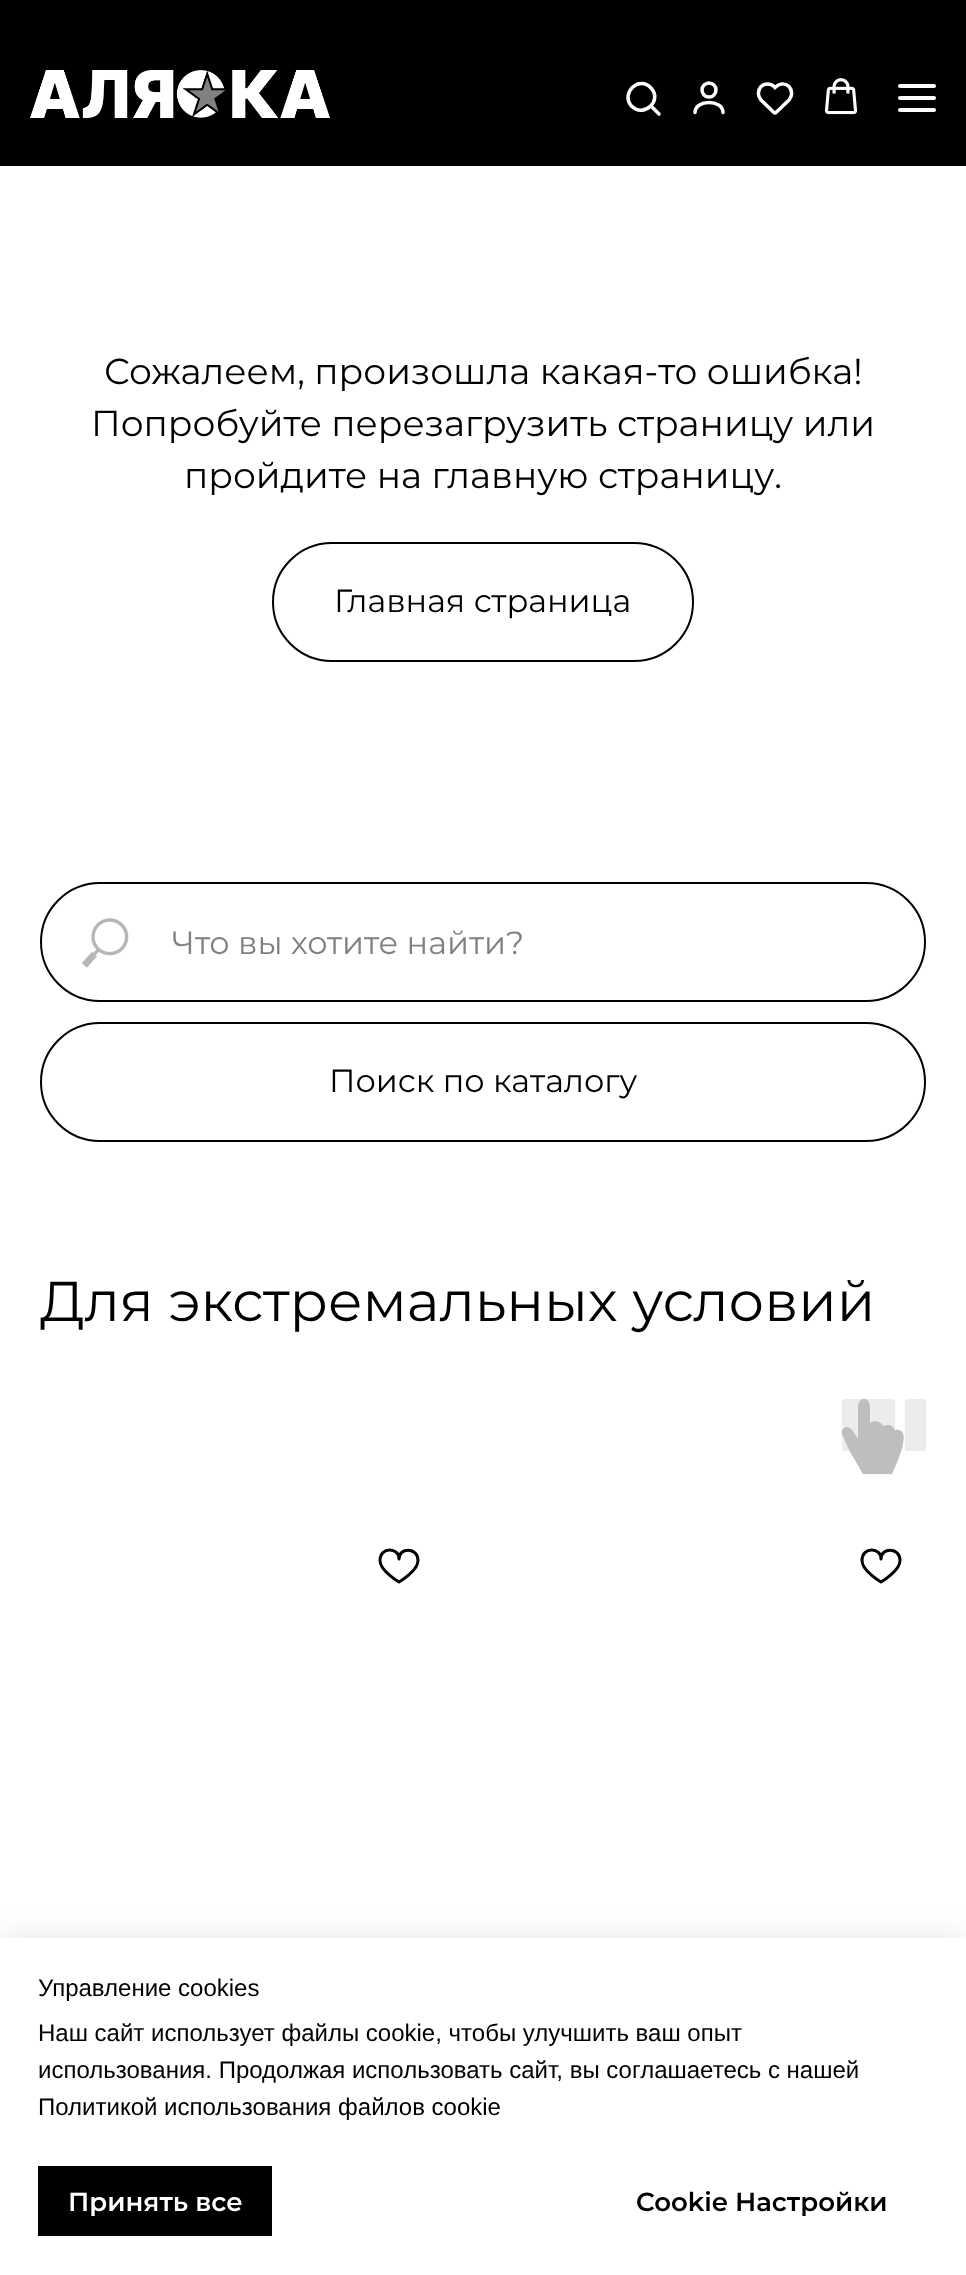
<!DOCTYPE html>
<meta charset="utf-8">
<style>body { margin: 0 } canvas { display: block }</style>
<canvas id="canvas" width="966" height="2275"></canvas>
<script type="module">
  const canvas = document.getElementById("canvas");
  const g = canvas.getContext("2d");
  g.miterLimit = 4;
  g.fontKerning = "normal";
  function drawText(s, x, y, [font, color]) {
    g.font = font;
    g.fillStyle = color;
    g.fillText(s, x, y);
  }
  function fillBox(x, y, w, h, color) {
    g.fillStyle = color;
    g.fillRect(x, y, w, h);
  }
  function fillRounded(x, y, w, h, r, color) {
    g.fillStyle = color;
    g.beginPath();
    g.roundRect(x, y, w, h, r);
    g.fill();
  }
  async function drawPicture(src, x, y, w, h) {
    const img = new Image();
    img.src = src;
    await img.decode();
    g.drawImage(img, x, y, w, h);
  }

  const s1 = ["36px Montserrat", "#000000"];
  const s2 = ["32px Montserrat", "#000000"];
  const s3 = ["32px Montserrat", "#808080"];
  const s4 = ["56px Montserrat", "#000000"];
  const s5 = ["24px Liberation Sans", "#000000"];
  const s6 = ["600 26px Montserrat", "#FFFFFF"];
  const s7 = ["600 26px Montserrat", "#000000"];

  fillBox(0, 0, 966, 2275, "#FFFFFF");
  drawText("Сожалеем, произошла какая-то ошибка!", 104, 384, s1);
  drawText("Попробуйте перезагрузить страницу или", 91, 436, s1);
  drawText("пройдите на главную страницу.", 184, 488, s1);
  g.beginPath();
  g.roundRect(273, 543, 420, 118, 59);
  g.strokeStyle = "#000000";
  g.lineWidth = 2;
  g.stroke();
  drawText("Главная страница", 334, 612, s2);
  g.beginPath();
  g.roundRect(41, 883, 884, 118, 59);
  g.stroke();
  await drawPicture("pic1.png", 82, 918, 47, 50);
  drawText("Что вы хотите найти?", 172, 954, s3);
  g.beginPath();
  g.roundRect(41, 1023, 884, 118, 59);
  g.stroke();
  drawText("Поиск по каталогу", 329, 1092, s2);
  drawText("Для экстремальных условий", 40, 1321, s4);
  fillRounded(842, 1399, 53, 52, 1.5, "#ECECEC");
  g.fillStyle = "#BEBEBE";
  g.beginPath();
  g.moveTo(863, 1474);
  g.lineTo(849, 1450);
  g.lineTo(843, 1436);
  g.bezierCurveTo(842, 1434, 841, 1431, 843, 1429);
  g.bezierCurveTo(850, 1422, 855, 1435, 858, 1439);
  g.lineTo(858, 1407);
  g.bezierCurveTo(858, 1407, 858, 1399, 864, 1399);
  g.bezierCurveTo(870, 1399, 870, 1407, 870, 1407);
  g.lineTo(870, 1423);
  g.bezierCurveTo(874, 1420, 881, 1421, 883, 1426);
  g.bezierCurveTo(883, 1426, 891, 1422, 895, 1430);
  g.bezierCurveTo(915, 1426, 895, 1467, 892, 1474);
  g.closePath();
  g.fill();
  g.fillStyle = "#ECECEC";
  g.beginPath();
  g.roundRect(905, 1399, 21, 52, [1.5, 0, 0, 1.5]);
  g.fill();
  g.beginPath();
  g.moveTo(418, 1560.5);
  g.bezierCurveTo(418, 1571, 399, 1582, 399, 1582);
  g.bezierCurveTo(399, 1582, 380, 1571, 380, 1560.5);
  g.bezierCurveTo(380, 1546.5, 399, 1547, 399, 1559);
  g.bezierCurveTo(399, 1547, 418, 1547, 418, 1560.5);
  g.closePath();
  g.lineWidth = 3;
  g.lineJoin = "round";
  g.stroke();
  g.beginPath();
  g.moveTo(900, 1560.5);
  g.bezierCurveTo(900, 1571, 881, 1582, 881, 1582);
  g.bezierCurveTo(881, 1582, 862, 1571, 862, 1560.5);
  g.bezierCurveTo(862, 1546.5, 881, 1547, 881, 1559);
  g.bezierCurveTo(881, 1547, 900, 1547, 900, 1560.5);
  g.closePath();
  g.stroke();
  fillBox(0, 0, 966, 166, "#000000");
  await drawPicture("pic2.png", 30, 70, 300, 48);
  g.beginPath();
  g.moveTo(651, 88);
  g.bezierCurveTo(663, 100.5, 643.5, 118.5, 631.5, 106);
  g.bezierCurveTo(620, 93, 639.5, 75, 651, 88);
  g.closePath();
  g.strokeStyle = "#FFFFFF";
  g.lineWidth = 3.5;
  g.lineJoin = "miter";
  g.stroke();
  g.beginPath();
  g.moveTo(652.5, 107.5);
  g.lineTo(659, 114);
  g.lineCap = "round";
  g.stroke();
  g.beginPath();
  g.arc(709, 90, 7, 0, Math.PI * 2);
  g.stroke();
  g.beginPath();
  g.moveTo(723, 112.5);
  g.bezierCurveTo(723, 99, 695, 99, 695, 112.5);
  g.stroke();
  g.beginPath();
  g.moveTo(789, 86.5);
  g.bezierCurveTo(792.5, 90.5, 792.5, 96, 789, 100);
  g.lineTo(776, 112.5);
  g.bezierCurveTo(775.5, 113, 774.5, 113, 774, 112.5);
  g.lineTo(761, 100);
  g.bezierCurveTo(757.5, 96, 757.5, 90.5, 761, 86.5);
  g.bezierCurveTo(764.5, 83, 770.5, 83, 774, 86.5);
  g.lineTo(775, 87.5);
  g.bezierCurveTo(779, 83.5, 784.5, 82.5, 789, 86.5);
  g.closePath();
  g.stroke();
  await drawPicture("pic3.png", 824, 78, 34, 37);
  fillRounded(898, 84, 38, 4, 2, "#FFFFFF");
  fillRounded(898, 96, 38, 4, 2, "#FFFFFF");
  fillRounded(898, 108, 38, 4, 2, "#FFFFFF");
  g.fillStyle = "rgba(0, 0, 0, 0.1)";
  g.filter = "blur(15px)";
  g.beginPath();
  g.rect(0, 1938, 966, 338);
  g.fill();
  g.filter = "none";
  fillBox(0, 1938, 966, 337, "#FFFFFF");
  drawText("Управление cookies", 38, 1996, s5);
  drawText("Наш сайт использует файлы cookie, чтобы улучшить ваш опыт", 38, 2041, s5);
  drawText("использования. Продолжая использовать сайт, вы соглашаетесь с нашей", 38, 2078, s5);
  drawText("Политикой использования файлов cookie", 38, 2115, s5);
  fillBox(38, 2166, 234, 70, "#000000");
  drawText("Принять все", 68, 2211, s6);
  drawText("Cookie Настройки", 636, 2211, s7);
</script>
